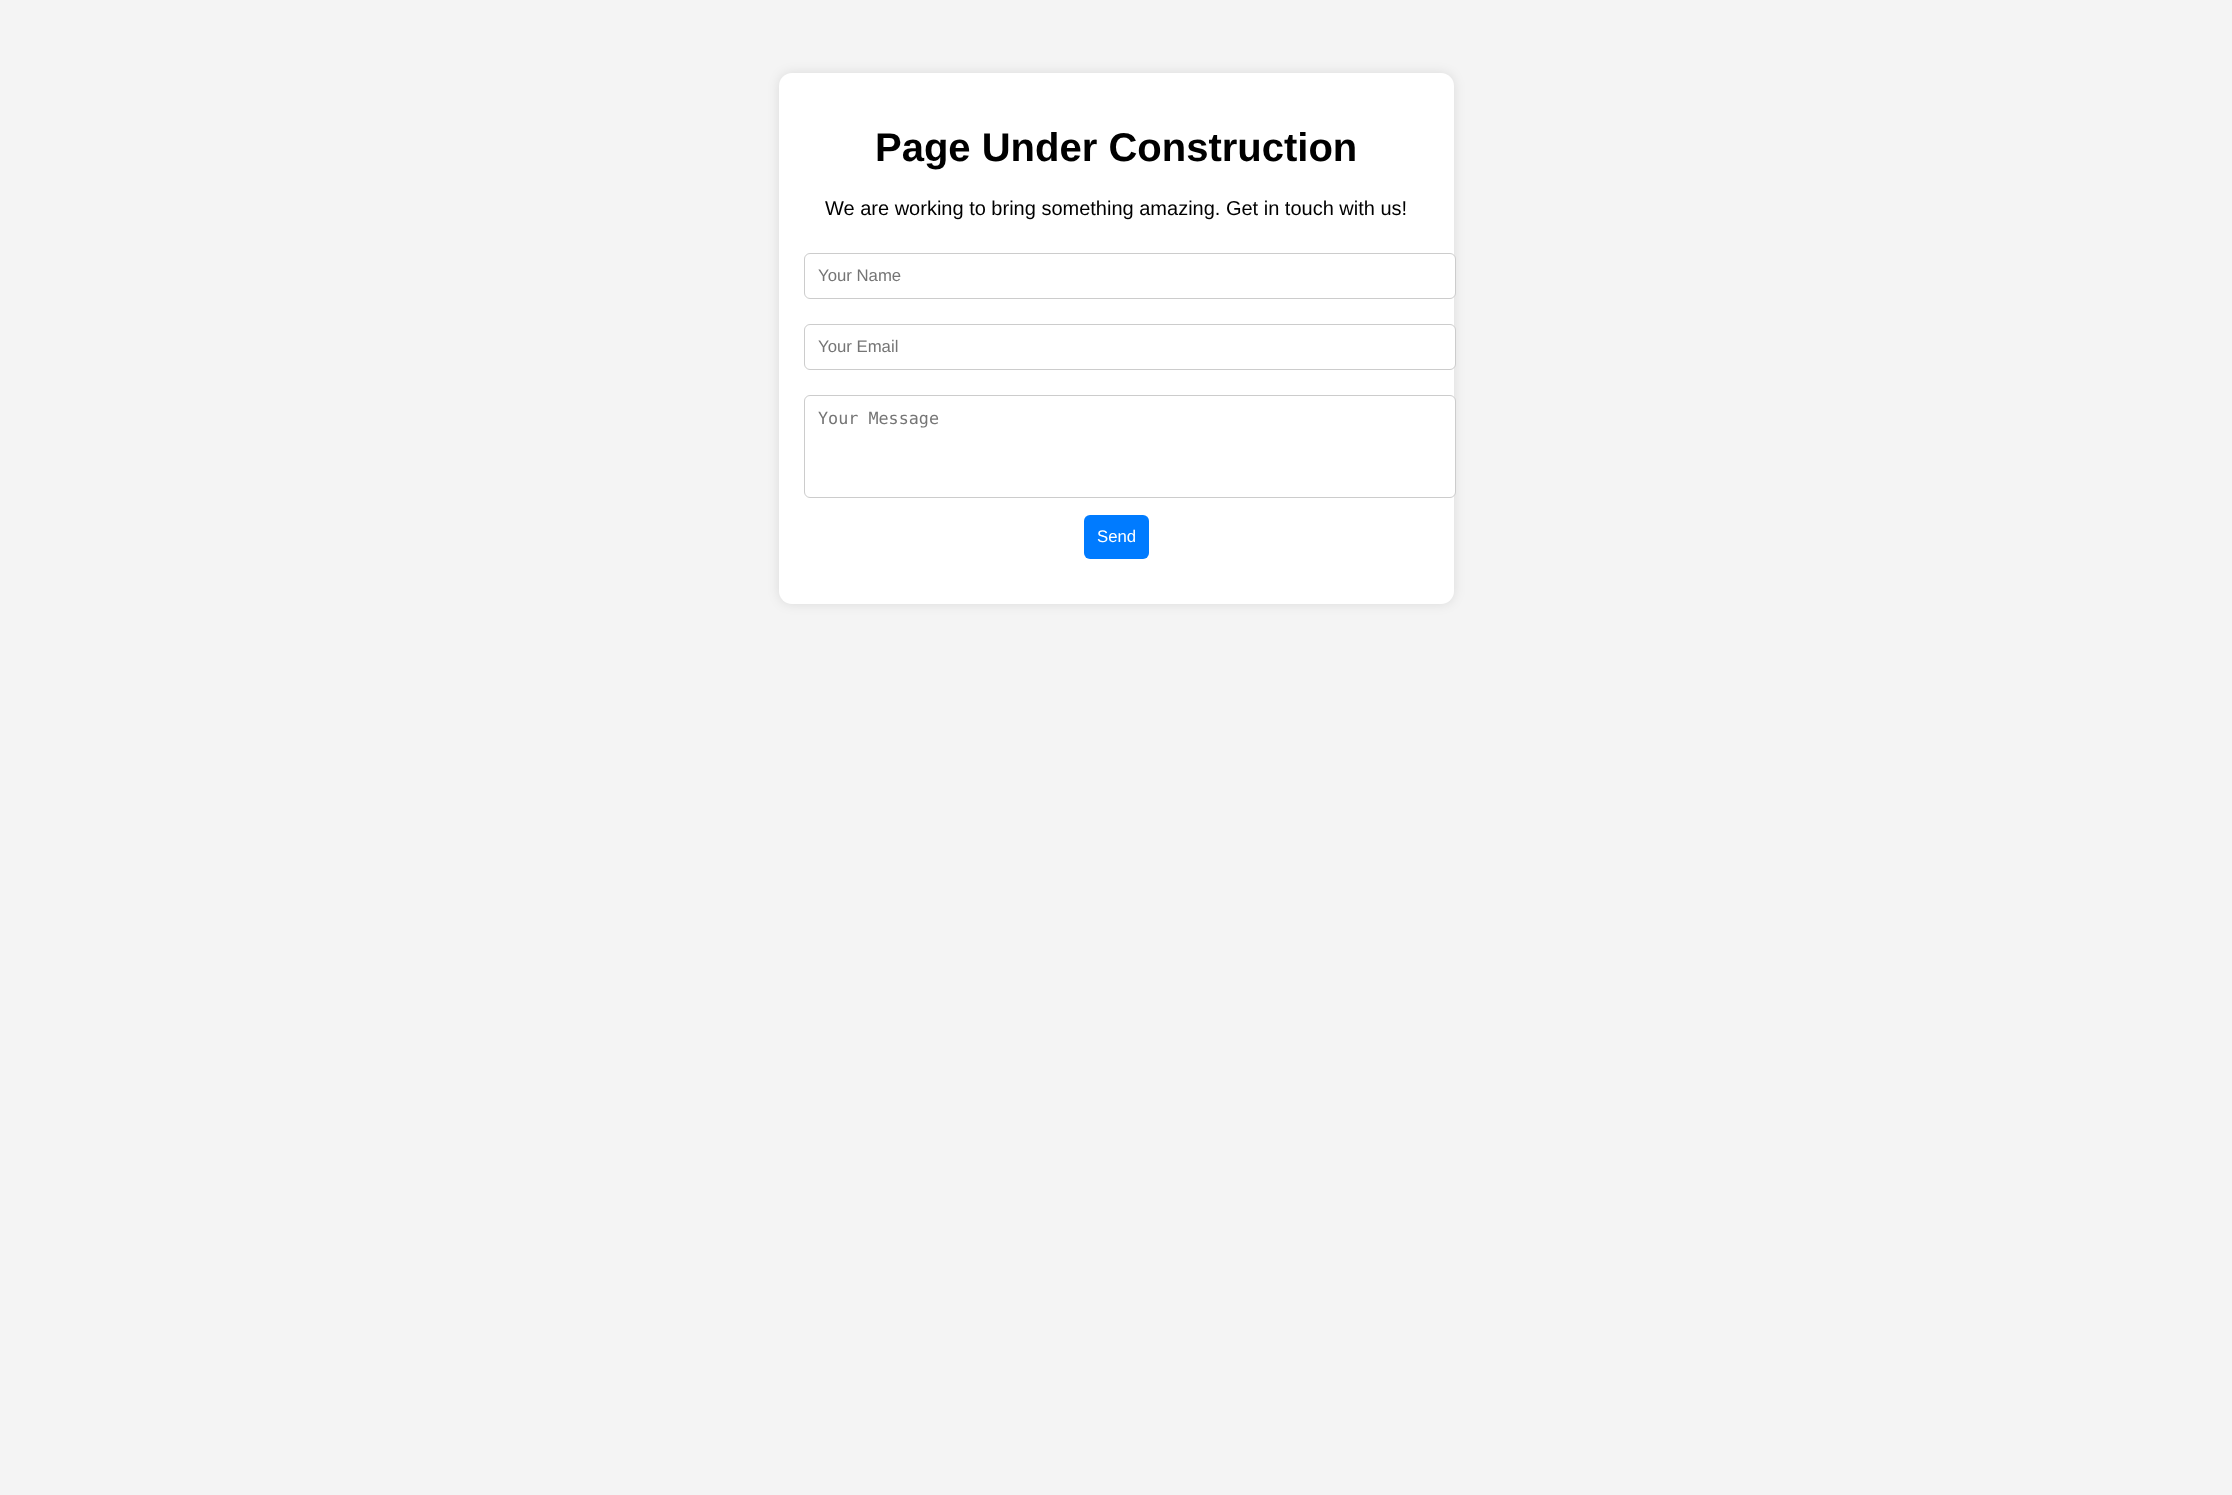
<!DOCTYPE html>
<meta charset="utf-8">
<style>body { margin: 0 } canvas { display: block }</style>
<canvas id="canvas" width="2232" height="1495"></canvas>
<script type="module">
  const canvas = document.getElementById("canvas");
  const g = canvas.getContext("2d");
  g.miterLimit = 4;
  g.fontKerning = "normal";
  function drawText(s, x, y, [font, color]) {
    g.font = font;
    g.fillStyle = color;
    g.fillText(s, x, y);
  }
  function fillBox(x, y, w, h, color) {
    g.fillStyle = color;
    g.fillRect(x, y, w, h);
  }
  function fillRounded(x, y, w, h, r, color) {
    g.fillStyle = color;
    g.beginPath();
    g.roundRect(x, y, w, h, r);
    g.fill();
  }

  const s1 = ["bold 40px Liberation Sans", "#000000"];
  const s2 = ["20px Liberation Sans", "#000000"];
  const s3 = ["16.75px Liberation Sans", "#757575"];
  const s4 = ["16.75px DejaVu Sans Mono", "#757575"];
  const s5 = ["16.75px Liberation Sans", "#FFFFFF"];

  fillBox(0, 0, 2232, 1495, "#F4F4F4");
  g.fillStyle = "rgba(0, 0, 0, 0.1)";
  g.filter = "blur(6px)";
  g.beginPath();
  g.roundRect(779, 73, 675, 531, 13);
  g.fill();
  g.filter = "none";
  fillRounded(779, 73, 675, 531, 13, "#FFFFFF");
  drawText("Page Under Construction", 875, 161, s1);
  drawText("We are working to bring something amazing. Get in touch with us!", 825, 215, s2);
  g.fillStyle = "#FFFFFF";
  g.beginPath();
  g.roundRect(804.5, 253.5, 651, 45, 5.5);
  g.fill();
  g.strokeStyle = "#CCCCCC";
  g.stroke();
  drawText("Your Name", 818, 281, s3);
  g.fillStyle = "#FFFFFF";
  g.beginPath();
  g.roundRect(804.5, 324.5, 651, 45, 5.5);
  g.fill();
  g.stroke();
  drawText("Your Email", 818, 352, s3);
  g.fillStyle = "#FFFFFF";
  g.beginPath();
  g.roundRect(804.5, 395.5, 651, 102, 5.5);
  g.fill();
  g.stroke();
  drawText("Your Message", 818, 424, s4);
  fillRounded(1084, 515, 65, 44, 6, "#007BFF");
  drawText("Send", 1097, 542, s5);
</script>
